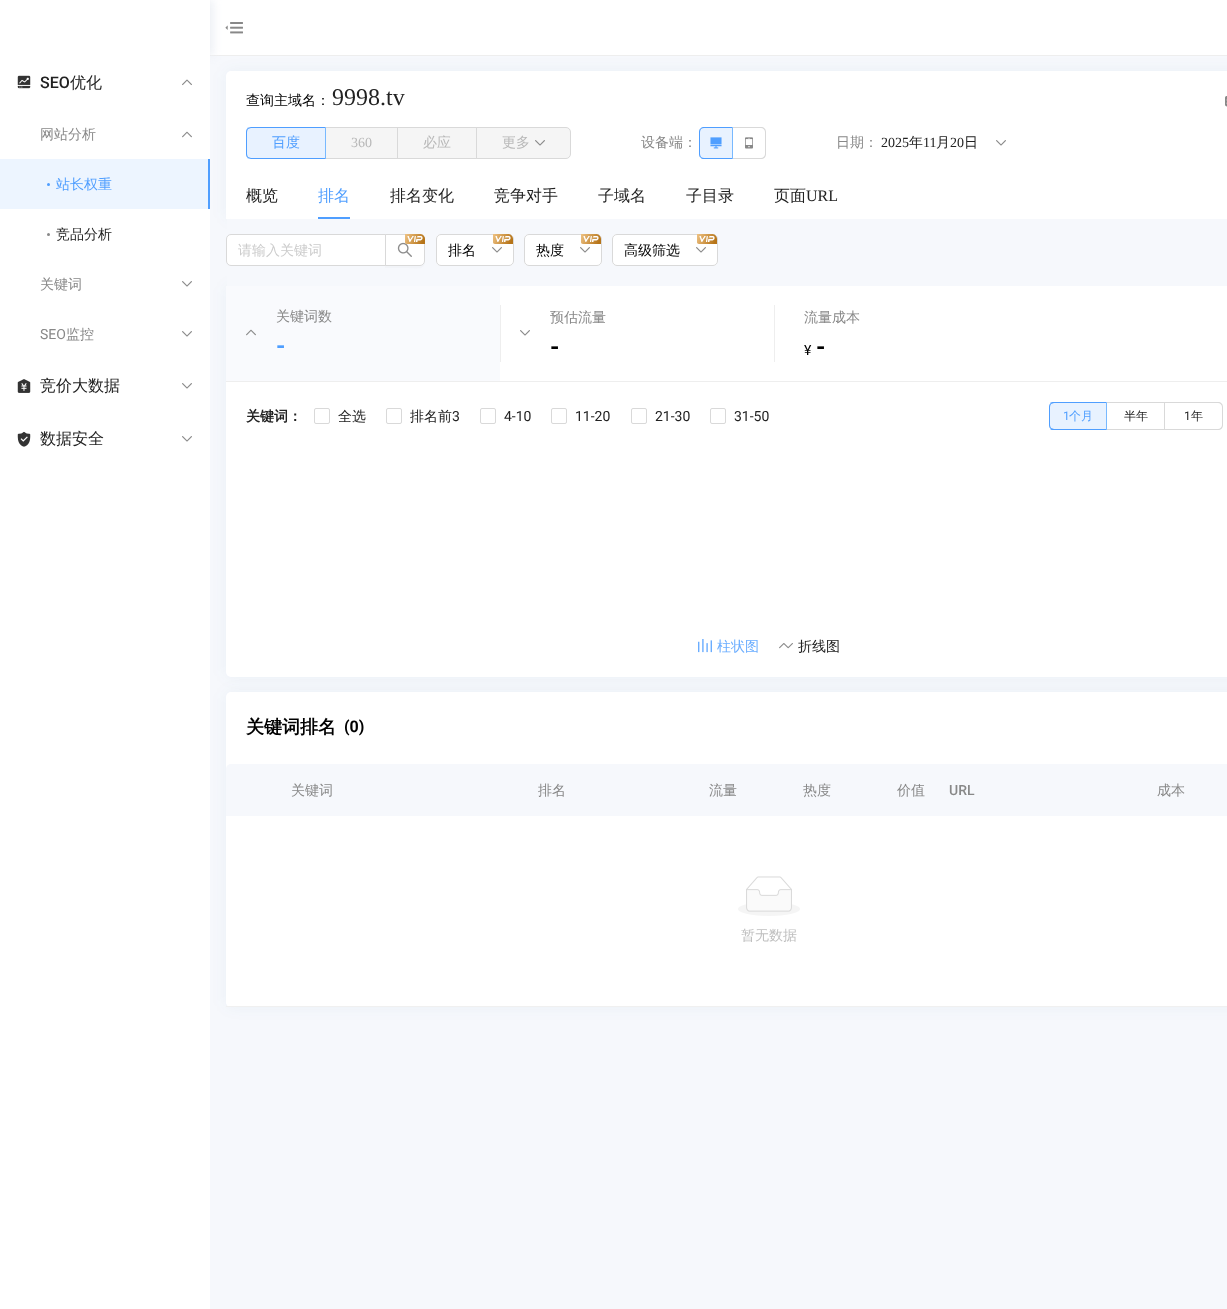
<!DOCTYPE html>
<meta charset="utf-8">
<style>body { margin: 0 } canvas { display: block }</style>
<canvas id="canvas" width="1227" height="1309"></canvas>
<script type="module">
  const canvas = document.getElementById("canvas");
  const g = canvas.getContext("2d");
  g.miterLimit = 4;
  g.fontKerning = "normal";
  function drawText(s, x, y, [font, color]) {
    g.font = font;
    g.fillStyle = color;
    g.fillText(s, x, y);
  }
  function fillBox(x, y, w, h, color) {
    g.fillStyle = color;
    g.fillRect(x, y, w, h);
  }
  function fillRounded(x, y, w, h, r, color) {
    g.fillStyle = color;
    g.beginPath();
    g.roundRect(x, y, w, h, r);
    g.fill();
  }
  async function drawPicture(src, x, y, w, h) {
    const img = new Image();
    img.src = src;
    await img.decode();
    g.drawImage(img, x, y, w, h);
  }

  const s1 = ["500 16px Roboto", "#222222"];
  const s2 = ["500 16px WenQuanYi Zen Hei", "#222222"];
  const s3 = ["500 14px WenQuanYi Zen Hei", "#888888"];
  const s4 = ["500 14px WenQuanYi Zen Hei", "#4F9EFF"];
  const s5 = ["500 14px WenQuanYi Zen Hei", "#222222"];
  const s6 = ["14px Roboto", "#888888"];
  const s7 = ["500 14px WenQuanYi Zen Hei", "#000000"];
  const s8 = ["24px Liberation Serif", "#222222"];
  const s9 = ["14px Liberation Serif", "#B8B8B8"];
  const s10 = ["500 14px WenQuanYi Zen Hei", "#B8B8B8"];
  const s11 = ["14px Liberation Serif", "#222222"];
  const s12 = ["500 16px WenQuanYi Zen Hei", "#4F9EFF"];
  const s13 = ["16px Liberation Serif", "#222222"];
  const s14 = ["500 14px WenQuanYi Zen Hei", "#CCCCCC"];
  const s15 = ["bold 24px Roboto", "#4F9EFF"];
  const s16 = ["bold 24px Roboto", "#000000"];
  const s17 = ["14px Roboto", "#000000"];
  const s18 = ["bold 14px WenQuanYi Zen Hei", "#222222"];
  const s19 = ["14px Roboto", "#222222"];
  const s20 = ["12px Roboto", "#4F9EFF"];
  const s21 = ["500 12px WenQuanYi Zen Hei", "#4F9EFF"];
  const s22 = ["500 12px WenQuanYi Zen Hei", "#222222"];
  const s23 = ["12px Roboto", "#222222"];
  const s24 = ["500 14px WenQuanYi Zen Hei", "#6AADFF"];
  const s25 = ["bold 18px WenQuanYi Zen Hei", "#000000"];
  const s26 = ["bold 16px Roboto", "#000000"];
  const s27 = ["500 14px Roboto", "#888888"];
  const s28 = ["500 14px WenQuanYi Zen Hei", "#BFBFBF"];

  fillBox(0, 0, 1227, 1309, "#F6F8FC");
  g.fillStyle = "rgba(29, 73, 120, 0.05)";
  g.filter = "blur(7.5px)";
  g.beginPath();
  g.roundRect(226, 71, 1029, 148, 5);
  g.fill();
  g.filter = "none";
  g.filter = "blur(7.5px)";
  g.beginPath();
  g.roundRect(226, 286, 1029, 391, 5);
  g.fill();
  g.filter = "none";
  fillRounded(226, 286, 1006, 391, 5, "#FFFFFF");
  g.fillStyle = "rgba(29, 73, 120, 0.05)";
  g.filter = "blur(7.5px)";
  g.beginPath();
  g.roundRect(226, 692, 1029, 315, 5);
  g.fill();
  g.filter = "none";
  fillBox(0, 0, 210, 1309, "#FFFFFF");
  fillBox(210, 0, 1017, 55, "#FFFFFF");
  fillBox(210, 55, 1017, 1, "#EEEEEE");
  await drawPicture("pic7.png", 225, 22, 18, 12);
  fillRounded(226, 71, 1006, 148, 5, "#FFFFFF");
  g.save();
  g.beginPath();
  g.rect(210, 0, 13, 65);
  g.clip();
  g.fillStyle = "#EBEEF4";
  g.filter = "blur(5px)";
  g.beginPath();
  g.rect(3, 0, 210, 56);
  g.fill();
  g.filter = "none";
  g.restore();
  fillBox(0, 56, 210, 6, "#FFFFFF");
  await drawPicture("pic1.png", 17, 75, 14, 14);
  drawText("SEO", 40, 88, s1);
  drawText("优化", 70, 88, s2);
  await drawPicture("pic2.png", 182, 79, 10, 7);
  drawText("网站分析", 40, 139, s3);
  await drawPicture("pic3.png", 182, 131, 10, 7);
  fillBox(0, 159, 208, 50, "#EDF5FF");
  g.fillStyle = "#4F9EFF";
  g.beginPath();
  g.arc(48.5, 184.5, 1.5, 0, Math.PI * 2);
  g.fill();
  drawText("站长权重", 56, 189, s4);
  fillBox(208, 159, 2, 50, "#4F9EFF");
  g.fillStyle = "#888888";
  g.beginPath();
  g.arc(48.5, 234.5, 1.5, 0, Math.PI * 2);
  g.fill();
  drawText("竞品分析", 56, 239, s5);
  drawText("关键词", 40, 289, s3);
  await drawPicture("pic4.png", 182, 281, 10, 6);
  drawText("SEO", 40, 339, s6);
  drawText("监控", 66, 339, s3);
  await drawPicture("pic4.png", 182, 331, 10, 6);
  await drawPicture("pic5.png", 17, 379, 14, 14);
  drawText("竞价大数据", 40, 391, s2);
  await drawPicture("pic4.png", 182, 383, 10, 6);
  await drawPicture("pic6.png", 17, 431, 14, 16);
  drawText("数据安全", 40, 444, s2);
  await drawPicture("pic4.png", 182, 436, 10, 6);
  drawText("查询主域名：", 246, 105, s7);
  drawText("9998.tv", 332, 105, s8);
  await drawPicture("pic8.png", 1225, 96, 2, 11);
  g.fillStyle = "#E8F2FF";
  g.beginPath();
  g.roundRect(246, 127, 80, 32, [5, 0, 0, 5]);
  g.fill();
  g.fillStyle = "#4F9EFF";
  g.beginPath();
  g.moveTo(251, 127);
  g.bezierCurveTo(250, 127, 248, 128, 247, 128);
  g.lineTo(248, 129);
  g.lineTo(251, 128);
  g.lineTo(325, 128);
  g.lineTo(326, 127);
  g.closePath();
  g.fill();
  g.fillStyle = "#78B9FF";
  g.beginPath();
  g.moveTo(326, 127);
  g.lineTo(325, 128);
  g.lineTo(325, 158);
  g.lineTo(326, 159);
  g.closePath();
  g.fill();
  g.fillStyle = "#4F9EFF";
  g.beginPath();
  g.moveTo(326, 159);
  g.lineTo(325, 158);
  g.lineTo(251, 158);
  g.lineTo(248, 157);
  g.lineTo(247, 158);
  g.bezierCurveTo(248, 158, 250, 159, 251, 159);
  g.closePath();
  g.fill();
  g.beginPath();
  g.moveTo(246, 132);
  g.lineTo(246, 154);
  g.bezierCurveTo(246, 155.5, 246.5, 157, 247.5, 157.5);
  g.lineTo(248, 157);
  g.bezierCurveTo(247.5, 156, 247, 155, 247, 154);
  g.lineTo(247, 132);
  g.bezierCurveTo(247, 131, 247.5, 130, 248, 129);
  g.lineTo(247.5, 128.5);
  g.bezierCurveTo(246.5, 129, 246, 130.5, 246, 132);
  g.closePath();
  g.fill();
  drawText("百度", 272, 147, s4);
  fillBox(326, 128, 71, 30, "#F5F5F5");
  fillBox(326, 127, 151, 1, "#D9D9D9");
  fillBox(397, 127, 1, 32, "#D9D9D9");
  fillBox(326, 158, 151, 1, "#D9D9D9");
  drawText("360", 351, 147, s9);
  fillBox(398, 128, 78, 30, "#F5F5F5");
  drawText("必应", 423, 147, s10);
  g.fillStyle = "#F5F5F5";
  g.beginPath();
  g.roundRect(476.5, 127.5, 94, 31, [0, 4.5, 4.5, 0]);
  g.fill();
  g.strokeStyle = "#D9D9D9";
  g.stroke();
  drawText("更多", 502, 147, s10);
  await drawPicture("pic9.png", 535, 140, 10, 6);
  drawText("设备端：", 641, 147, s3);
  g.fillStyle = "#E8F2FF";
  g.beginPath();
  g.roundRect(699, 127, 34, 32, [5, 0, 0, 5]);
  g.fill();
  g.fillStyle = "#4F9EFF";
  g.beginPath();
  g.moveTo(704, 127);
  g.bezierCurveTo(702.5, 127, 701, 127.5, 700.5, 128.5);
  g.lineTo(701, 129);
  g.bezierCurveTo(702, 128.5, 703, 128, 704, 128);
  g.lineTo(732, 128);
  g.lineTo(733, 127);
  g.closePath();
  g.fill();
  g.fillStyle = "#78B9FF";
  g.beginPath();
  g.moveTo(733, 127);
  g.lineTo(732, 128);
  g.lineTo(732, 158);
  g.lineTo(733, 159);
  g.closePath();
  g.fill();
  g.fillStyle = "#4F9EFF";
  g.beginPath();
  g.moveTo(733, 159);
  g.lineTo(732, 158);
  g.lineTo(704, 158);
  g.bezierCurveTo(703, 158, 702, 157.5, 701, 157);
  g.lineTo(700.5, 157.5);
  g.bezierCurveTo(701, 158.5, 702.5, 159, 704, 159);
  g.closePath();
  g.fill();
  g.beginPath();
  g.moveTo(699, 132);
  g.lineTo(699, 154);
  g.bezierCurveTo(699, 155.5, 699.5, 157, 700.5, 157.5);
  g.lineTo(701, 157);
  g.bezierCurveTo(700.5, 156, 700, 155, 700, 154);
  g.lineTo(700, 132);
  g.bezierCurveTo(700, 131, 700.5, 130, 701, 129);
  g.lineTo(700.5, 128.5);
  g.bezierCurveTo(699.5, 129, 699, 130.5, 699, 132);
  g.closePath();
  g.fill();
  await drawPicture("pic10.png", 710, 137, 12, 12);
  g.fillStyle = "#D9D9D9";
  g.beginPath();
  g.moveTo(733, 127);
  g.lineTo(761, 127);
  g.bezierCurveTo(764, 127, 766, 129, 766, 132);
  g.lineTo(766, 154);
  g.bezierCurveTo(766, 157, 764, 159, 761, 159);
  g.lineTo(733, 159);
  g.closePath();
  g.moveTo(733, 128);
  g.lineTo(761, 128);
  g.bezierCurveTo(763, 128, 765, 130, 765, 132);
  g.lineTo(765, 154);
  g.bezierCurveTo(765, 156, 763, 158, 761, 158);
  g.lineTo(733, 158);
  g.closePath();
  g.fill("evenodd");
  await drawPicture("pic11.png", 745, 137, 8, 12);
  drawText("日期：", 836, 147, s3);
  drawText("2025", 881, 147, s11);
  drawText("年", 909, 147, s5);
  drawText("11", 923, 147, s11);
  drawText("月", 936, 147, s5);
  drawText("20", 950, 147, s11);
  drawText("日", 964, 147, s5);
  await drawPicture("pic4.png", 996, 140, 10, 6);
  fillBox(226, 215, 4, 4, "#FFFFFF");
  drawText("概览", 246, 201, s2);
  drawText("排名", 318, 201, s12);
  fillBox(318, 217, 32, 2, "#4F9EFF");
  drawText("排名变化", 390, 201, s2);
  drawText("竞争对手", 494, 201, s2);
  drawText("子域名", 598, 201, s2);
  drawText("子目录", 686, 201, s2);
  drawText("页面", 774, 201, s2);
  drawText("URL", 806, 201, s13);
  fillBox(227, 219, 1000, 67, "#F6F8FC");
  g.fillStyle = "#FFFFFF";
  g.beginPath();
  g.roundRect(226.5, 234.5, 159, 31, [4.5, 0, 0, 4.5]);
  g.fill();
  g.stroke();
  g.fillStyle = "#F2F4F8";
  g.beginPath();
  g.moveTo(385, 266);
  g.lineTo(385, 268);
  g.lineTo(408, 268);
  g.bezierCurveTo(416, 268, 425, 271, 425, 261);
  g.bezierCurveTo(425, 264, 423, 266, 420, 266);
  g.closePath();
  g.fill();
  g.fillStyle = "#FFFFFF";
  g.beginPath();
  g.roundRect(385.5, 234.5, 39, 31, [0, 4.5, 4.5, 0]);
  g.fill();
  g.stroke();
  await drawPicture("pic13.png", 397, 242, 15, 15);
  await drawPicture("pic12.png", 405, 234, 20, 10);
  drawText("请输入关键词", 238, 255, s14);
  fillRounded(436, 234, 78, 32, 5, "#FFFFFF");
  await drawPicture("pic4.png", 492, 247, 10, 6);
  g.beginPath();
  g.roundRect(436.5, 234.5, 77, 31, 4.5);
  g.stroke();
  await drawPicture("pic14.png", 493, 234, 20, 10);
  drawText("排名", 448, 255, s7);
  fillRounded(524, 234, 78, 32, 5, "#FFFFFF");
  await drawPicture("pic4.png", 580, 247, 10, 6);
  g.beginPath();
  g.roundRect(524.5, 234.5, 77, 31, 4.5);
  g.stroke();
  await drawPicture("pic14.png", 581, 234, 20, 10);
  drawText("热度", 536, 255, s7);
  fillRounded(612, 234, 106, 32, 5, "#FFFFFF");
  await drawPicture("pic4.png", 696, 247, 10, 6);
  g.beginPath();
  g.roundRect(612.5, 234.5, 105, 31, 4.5);
  g.stroke();
  await drawPicture("pic14.png", 697, 234, 20, 10);
  drawText("高级筛选", 624, 255, s7);
  fillBox(226, 381, 1001, 1, "#EEEEEE");
  fillBox(226, 286, 274, 95, "#F9FAFD");
  await drawPicture("pic15.png", 246, 329, 10, 7);
  drawText("关键词数", 276, 321, s3);
  drawText("-", 276, 354, s15);
  fillBox(500, 305, 1, 57, "#EEEEEE");
  await drawPicture("pic4.png", 520, 330, 10, 6);
  drawText("预估流量", 550, 322, s3);
  drawText("-", 550, 355, s16);
  fillBox(774, 305, 1, 57, "#EEEEEE");
  drawText("流量成本", 804, 322, s3);
  drawText("¥", 804, 355, s17);
  drawText("-", 816, 355, s16);
  drawText("关键词：", 246, 421, s18);
  g.beginPath();
  g.roundRect(314.5, 408.5, 15, 15, 1.5);
  g.stroke();
  drawText("全选", 338, 421, s5);
  g.beginPath();
  g.roundRect(386.5, 408.5, 15, 15, 1.5);
  g.stroke();
  drawText("排名前", 410, 421, s5);
  drawText("3", 452, 421, s19);
  g.beginPath();
  g.roundRect(480.5, 408.5, 15, 15, 1.5);
  g.stroke();
  drawText("4-10", 504, 421, s19);
  g.beginPath();
  g.roundRect(551.5, 408.5, 15, 15, 1.5);
  g.stroke();
  drawText("11-20", 575, 421, s19);
  g.beginPath();
  g.roundRect(631.5, 408.5, 15, 15, 1.5);
  g.stroke();
  drawText("21-30", 655, 421, s19);
  g.beginPath();
  g.roundRect(710.5, 408.5, 15, 15, 1.5);
  g.stroke();
  drawText("31-50", 734, 421, s19);
  g.fillStyle = "#E8F2FF";
  g.beginPath();
  g.roundRect(1049, 402, 58, 28, [5, 0, 0, 5]);
  g.fill();
  g.fillStyle = "#4F9EFF";
  g.beginPath();
  g.moveTo(1054, 402);
  g.bezierCurveTo(1052, 402, 1051, 402, 1050, 403);
  g.lineTo(1051, 404);
  g.lineTo(1054, 403);
  g.lineTo(1106, 403);
  g.lineTo(1107, 402);
  g.closePath();
  g.fill();
  g.fillStyle = "#78B9FF";
  g.beginPath();
  g.moveTo(1107, 402);
  g.lineTo(1106, 403);
  g.lineTo(1106, 429);
  g.lineTo(1107, 430);
  g.closePath();
  g.fill();
  g.fillStyle = "#4F9EFF";
  g.beginPath();
  g.moveTo(1107, 430);
  g.lineTo(1106, 429);
  g.lineTo(1054, 429);
  g.lineTo(1051, 428);
  g.lineTo(1050, 429);
  g.bezierCurveTo(1051, 430, 1052, 430, 1054, 430);
  g.closePath();
  g.fill();
  g.beginPath();
  g.moveTo(1049, 407);
  g.lineTo(1049, 425);
  g.bezierCurveTo(1049, 426.5, 1049.5, 428, 1050.5, 428.5);
  g.lineTo(1051, 428);
  g.bezierCurveTo(1050.5, 427, 1050, 426, 1050, 425);
  g.lineTo(1050, 407);
  g.bezierCurveTo(1050, 406, 1050.5, 405, 1051, 404);
  g.lineTo(1050.5, 403.5);
  g.bezierCurveTo(1049.5, 404, 1049, 405.5, 1049, 407);
  g.closePath();
  g.fill();
  drawText("1", 1063, 420, s20);
  drawText("个月", 1069, 420, s21);
  fillBox(1107, 402, 58, 1, "#D9D9D9");
  fillBox(1164, 402, 1, 28, "#D9D9D9");
  fillBox(1107, 429, 58, 1, "#D9D9D9");
  drawText("半年", 1124, 420, s22);
  g.fillStyle = "#D9D9D9";
  g.beginPath();
  g.moveTo(1165, 402);
  g.lineTo(1218, 402);
  g.bezierCurveTo(1221, 402, 1223, 404, 1223, 407);
  g.lineTo(1223, 425);
  g.bezierCurveTo(1223, 428, 1221, 430, 1218, 430);
  g.lineTo(1165, 430);
  g.closePath();
  g.moveTo(1165, 403);
  g.lineTo(1218, 403);
  g.bezierCurveTo(1220, 403, 1222, 405, 1222, 407);
  g.lineTo(1222, 425);
  g.bezierCurveTo(1222, 427, 1220, 429, 1218, 429);
  g.lineTo(1165, 429);
  g.closePath();
  g.fill("evenodd");
  drawText("1", 1184, 420, s23);
  drawText("年", 1191, 420, s22);
  await drawPicture("pic16.png", 698, 639, 14, 14);
  drawText("柱状图", 717, 651, s24);
  await drawPicture("pic17.png", 779, 643, 14, 6);
  drawText("折线图", 798, 651, s5);
  fillRounded(226, 692, 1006, 315, 5, "#FFFFFF");
  drawText("关键词排名", 246, 733, s25);
  drawText("(0)", 344, 732, s26);
  fillRounded(226, 764, 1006, 243, 5, "#FFFFFF");
  g.fillStyle = "#F6F8FC";
  g.beginPath();
  g.roundRect(226, 764, 53, 52, [5, 0, 0, 0]);
  g.fill();
  fillBox(279, 764, 948, 52, "#F6F8FC");
  drawText("关键词", 291, 795, s3);
  drawText("排名", 538, 795, s3);
  drawText("流量", 709, 795, s3);
  drawText("热度", 803, 795, s3);
  drawText("价值", 897, 795, s3);
  drawText("URL", 949, 795, s27);
  drawText("成本", 1157, 795, s3);
  fillBox(226, 1006, 1001, 1, "#F0F0F0");
  await drawPicture("pic18.png", 738, 876, 62, 40);
  drawText("暂无数据", 741, 940, s28);
</script>
